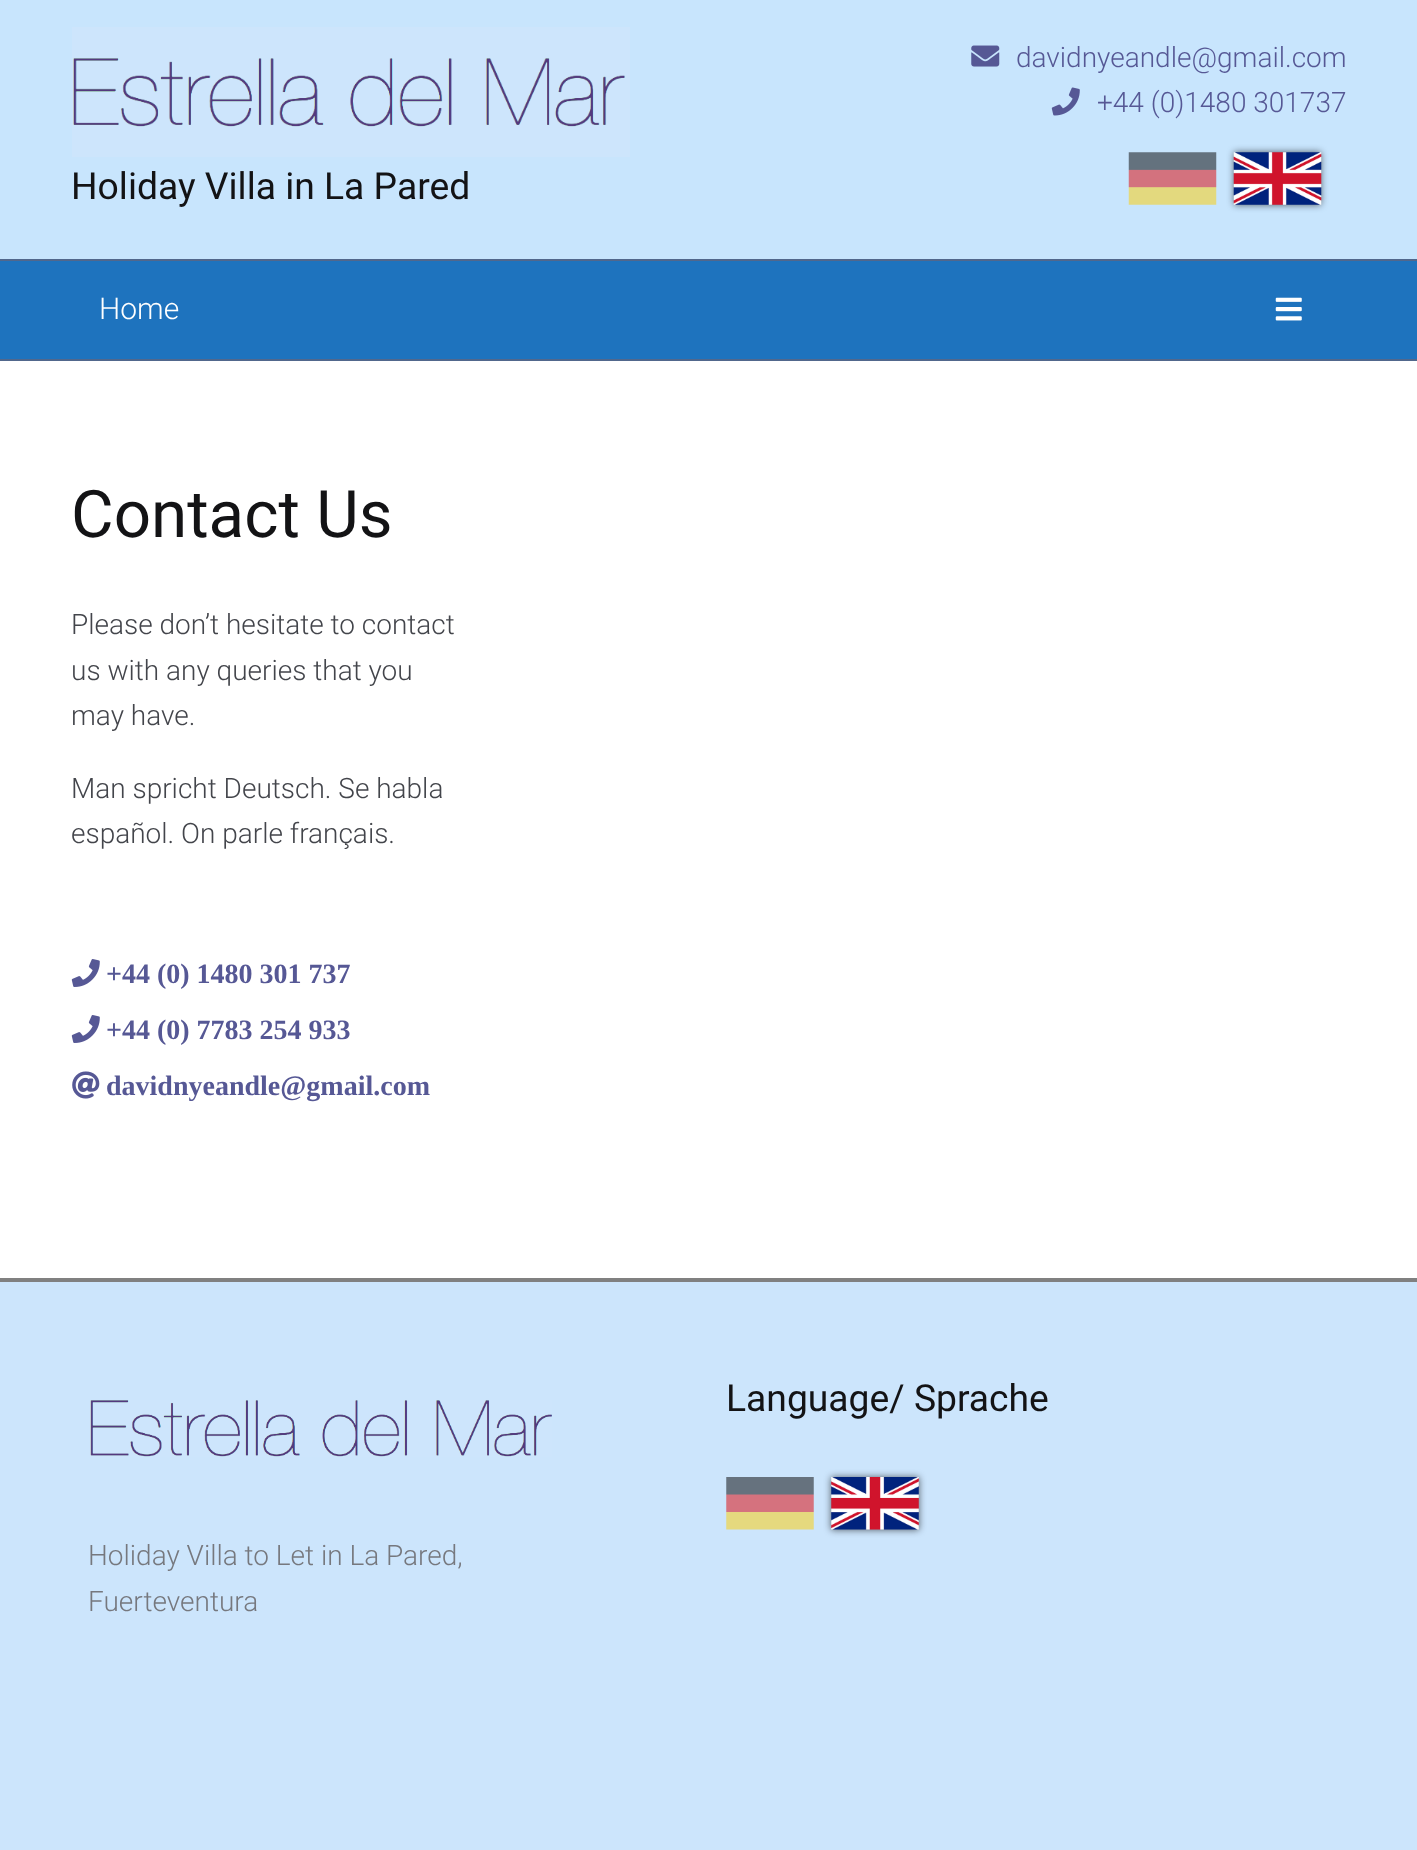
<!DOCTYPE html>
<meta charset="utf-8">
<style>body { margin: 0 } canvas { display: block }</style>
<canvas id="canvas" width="1417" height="1850"></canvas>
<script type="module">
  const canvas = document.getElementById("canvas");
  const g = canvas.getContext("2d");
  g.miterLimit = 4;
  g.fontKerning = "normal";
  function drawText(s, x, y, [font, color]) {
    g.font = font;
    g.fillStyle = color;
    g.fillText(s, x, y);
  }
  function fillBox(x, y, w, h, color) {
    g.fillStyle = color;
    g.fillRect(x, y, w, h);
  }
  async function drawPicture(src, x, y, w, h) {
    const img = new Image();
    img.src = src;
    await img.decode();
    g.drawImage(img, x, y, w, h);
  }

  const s1 = ["300 28px Roboto", "#565895"];
  const s2 = ["37.25px Roboto", "#131315"];
  const s3 = ["300 30px Roboto", "#FFFFFF"];
  const s4 = ["65.5px Roboto", "#131315"];
  const s5 = ["300 28px Roboto", "#43454B"];
  const s6 = ["bold 28px Liberation Serif", "#565895"];
  const s7 = ["300 28px Roboto", "#76787E"];

  fillBox(0, 0, 1417, 1850, "#FFFFFF");
  fillBox(0, 0, 1417, 259, "#C8E5FD");
  await drawPicture("pic1.png", 971, 45, 29, 22);
  drawText("davidnyeandle@gmail.com", 1016, 67, s1);
  await drawPicture("pic2.png", 1051, 87, 29, 29);
  drawText("+44 (0)1480 301737", 1097, 112, s1);
  await drawPicture("pic3.png", 1128, 152, 89, 53);
  g.fillStyle = "rgba(0, 0, 0, 0.58)";
  g.filter = "blur(3.5px)";
  g.beginPath();
  g.rect(1234, 152, 87, 53);
  g.fill();
  g.filter = "none";
  await drawPicture("pic4.png", 1233, 152, 89, 53);
  await drawPicture("pic5.png", 72, 27, 558, 130);
  drawText("Holiday Villa in La Pared", 71, 199, s2);
  fillBox(0, 261, 1417, 98, "#1E73BE");
  fillBox(0, 259, 1417, 2, "#51678C");
  fillBox(0, 359, 1417, 2, "#51678C");
  drawText("Home", 99, 319, s3);
  await drawPicture("pic6.png", 1275, 297, 27, 24);
  drawText("Contact Us", 71, 537, s4);
  drawText("Please don’t hesitate to contact", 71, 634, s5);
  drawText("us with any queries that you", 71, 680, s5);
  drawText("may have.", 71, 725, s5);
  drawText("Man spricht Deutsch. Se habla", 71, 798, s5);
  drawText("español. On parle français.", 71, 843, s5);
  await drawPicture("pic7.png", 71, 959, 29, 28);
  drawText("+44 (0) 1480 301 737", 106, 983, s6);
  await drawPicture("pic7.png", 71, 1015, 29, 28);
  drawText("+44 (0) 7783 254 933", 106, 1039, s6);
  await drawPicture("pic8.png", 72, 1071, 28, 28);
  drawText("davidnyeandle@gmail.com", 106, 1095, s6);
  fillBox(0, 1282, 1417, 568, "#CCE5FC");
  fillBox(0, 1278, 1417, 4, "#808080");
  drawText("Language/ Sprache", 726, 1411, s2);
  await drawPicture("pic9.png", 726, 1477, 88, 53);
  g.fillStyle = "rgba(0, 0, 0, 0.58)";
  g.filter = "blur(3.5px)";
  g.beginPath();
  g.rect(831, 1477, 88, 53);
  g.fill();
  g.filter = "none";
  await drawPicture("pic10.png", 831, 1477, 88, 53);
  await drawPicture("pic11.png", 90, 1400, 462, 57);
  drawText("Holiday Villa to Let in La Pared,", 88, 1565, s7);
  drawText("Fuerteventura", 88, 1611, s7);
</script>
